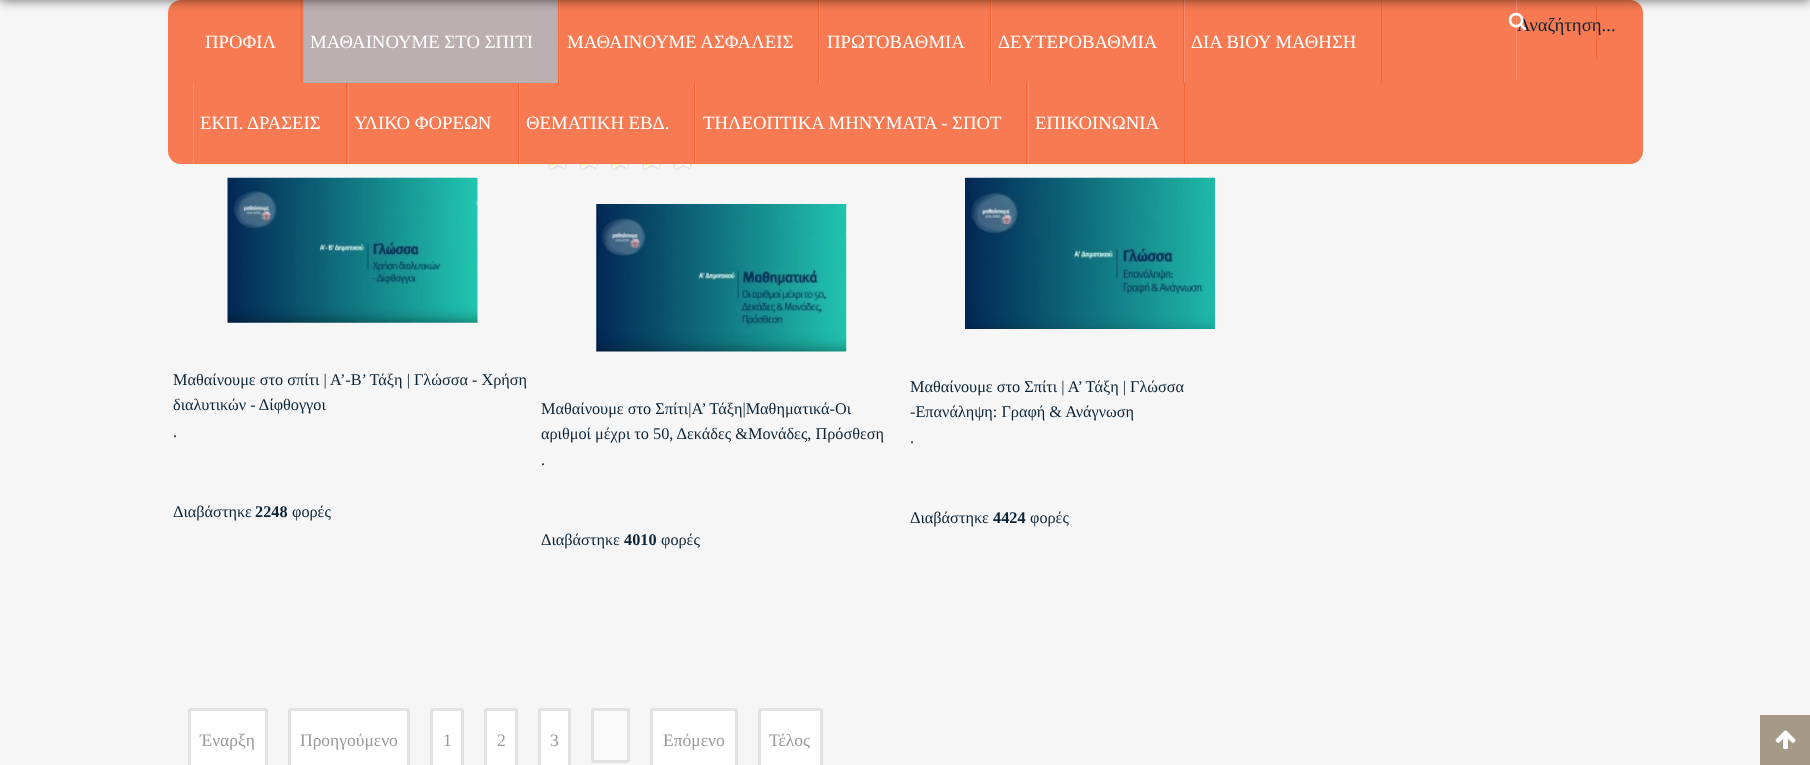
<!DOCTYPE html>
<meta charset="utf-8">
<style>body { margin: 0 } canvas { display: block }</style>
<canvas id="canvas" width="1810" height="765"></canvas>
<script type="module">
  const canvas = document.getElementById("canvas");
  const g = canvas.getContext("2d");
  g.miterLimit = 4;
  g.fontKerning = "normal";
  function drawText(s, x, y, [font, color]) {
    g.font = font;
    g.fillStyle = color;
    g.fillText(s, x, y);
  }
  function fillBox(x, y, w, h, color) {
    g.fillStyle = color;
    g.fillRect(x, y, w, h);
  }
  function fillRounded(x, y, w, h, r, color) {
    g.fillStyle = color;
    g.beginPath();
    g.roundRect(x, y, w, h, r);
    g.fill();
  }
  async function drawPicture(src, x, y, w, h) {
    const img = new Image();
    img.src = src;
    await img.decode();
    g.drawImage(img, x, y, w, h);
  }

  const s1 = ["18.75px Liberation Serif", "#0C2436"];
  const s2 = ["18.75px Liberation Serif", "#FFFFFF"];
  const s3 = ["16.25px Liberation Serif", "#0C2436"];
  const s4 = ["bold 16.25px Liberation Serif", "#0C2436"];
  const s5 = ["17.5px Liberation Serif", "#999999"];

  fillBox(0, 0, 1810, 765, "#F6F6F6");
  fillRounded(168, 0, 1475, 164, 13, "#F77A52");
  fillBox(1596, 6, 1, 53, "#F66435");
  drawText("Αναζήτηση...", 1517, 31, s1);
  fillBox(1516, 0, 1, 81, "#F8906F");
  await drawPicture("pic1.png", 1508, 12, 19, 19);
  fillBox(301, 0, 1, 83, "#F66435");
  fillBox(304, 0, 254, 83, "#BBAFB1");
  fillBox(558, 0, 1, 83, "#F66435");
  fillBox(303, 0, 1, 83, "#F8906F");
  fillBox(818, 0, 1, 83, "#F66435");
  fillBox(559, 0, 1, 83, "#F8906F");
  fillBox(990, 0, 1, 83, "#F66435");
  fillBox(819, 0, 1, 83, "#F8906F");
  fillBox(1183, 0, 1, 83, "#F66435");
  fillBox(991, 0, 1, 83, "#F8906F");
  fillBox(1381, 0, 1, 83, "#F66435");
  fillBox(1184, 0, 1, 83, "#F8906F");
  g.fillStyle = "rgba(0, 0, 0, 0.6)";
  g.filter = "blur(6px)";
  g.beginPath();
  g.rect(0, -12, 1810, 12);
  g.fill();
  g.filter = "none";
  drawText("ΠΡΟΦΙΛ", 205, 48, s2);
  drawText("ΜΑΘΑΙΝΟΥΜΕ ΣΤΟ ΣΠΙΤΙ", 310, 48, s2);
  drawText("ΜΑΘΑΙΝΟΥΜΕ ΑΣΦΑΛΕΙΣ", 567, 48, s2);
  drawText("ΠΡΩΤΟΒΑΘΜΙΑ", 827, 48, s2);
  drawText("ΔΕΥΤΕΡΟΒΑΘΜΙΑ", 998, 48, s2);
  drawText("ΔΙΑ ΒΙΟΥ ΜΑΘΗΣΗ", 1191, 48, s2);
  fillBox(346, 83, 1, 81, "#F66435");
  fillBox(193, 83, 1, 81, "#F8906F");
  drawText("ΕΚΠ. ΔΡΑΣΕΙΣ", 200, 129, s2);
  fillBox(518, 83, 1, 81, "#F66435");
  fillBox(348, 83, 1, 81, "#F8906F");
  drawText("ΥΛΙΚΟ ΦΟΡΕΩΝ", 354, 129, s2);
  fillBox(694, 83, 1, 81, "#F66435");
  fillBox(519, 83, 1, 81, "#F8906F");
  drawText("ΘΕΜΑΤΙΚΗ ΕΒΔ.", 526, 129, s2);
  fillBox(1026, 83, 1, 81, "#F66435");
  fillBox(695, 83, 1, 81, "#F8906F");
  drawText("ΤΗΛΕΟΠΤΙΚΑ ΜΗΝΥΜΑΤΑ - ΣΠΟΤ", 703, 129, s2);
  fillBox(1184, 83, 1, 81, "#F66435");
  fillBox(1028, 83, 1, 81, "#F8906F");
  drawText("ΕΠΙΚΟΙΝΩΝΙΑ", 1035, 129, s2);
  await drawPicture("pic2.png", 227, 177, 251, 146);
  drawText("Μαθαίνουμε στο σπίτι | Α’-Β’ Τάξη | Γλώσσα - Χρήση", 173, 385, s3);
  drawText("διαλυτικών - Δίφθογγοι", 173, 410, s3);
  drawText(".", 173, 437, s3);
  drawText("Διαβάστηκε", 173, 517, s3);
  drawText("2248", 255, 517, s4);
  drawText("φορές", 292, 517, s3);
  await drawPicture("pic3.png", 548, 164, 144, 7);
  await drawPicture("pic4.png", 548, 164, 130, 5);
  await drawPicture("pic5.png", 596, 204, 251, 148);
  drawText("Μαθαίνουμε στο Σπίτι|Α’ Τάξη|Μαθηματικά-Οι", 541, 414, s3);
  drawText("αριθμοί μέχρι το 50, Δεκάδες &Μονάδες, Πρόσθεση", 541, 439, s3);
  drawText(".", 541, 465, s3);
  drawText("Διαβάστηκε", 541, 545, s3);
  drawText("4010", 624, 545, s4);
  drawText("φορές", 661, 545, s3);
  await drawPicture("pic6.png", 965, 177, 250, 152);
  drawText("Μαθαίνουμε στο Σπίτι | Α’ Τάξη | Γλώσσα", 910, 392, s3);
  drawText("-Επανάληψη: Γραφή & Ανάγνωση", 910, 417, s3);
  drawText(".", 910, 443, s3);
  drawText("Διαβάστηκε", 910, 523, s3);
  drawText("4424", 993, 523, s4);
  drawText("φορές", 1030, 523, s3);
  g.fillStyle = "#FFFFFF";
  g.beginPath();
  g.roundRect(189.5, 709.5, 77, 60, 1);
  g.fill();
  g.strokeStyle = "#E2E2E2";
  g.lineWidth = 3;
  g.stroke();
  drawText("Έναρξη", 200, 746, s5);
  g.fillStyle = "#FFFFFF";
  g.beginPath();
  g.roundRect(289.5, 709.5, 119, 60, 1);
  g.fill();
  g.stroke();
  drawText("Προηγούμενο", 300, 746, s5);
  g.fillStyle = "#FFFFFF";
  g.beginPath();
  g.roundRect(431.5, 709.5, 31, 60, 1);
  g.fill();
  g.stroke();
  drawText("1", 443, 746, s5);
  g.fillStyle = "#FFFFFF";
  g.beginPath();
  g.roundRect(485.5, 709.5, 31, 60, 1);
  g.fill();
  g.stroke();
  drawText("2", 497, 746, s5);
  g.fillStyle = "#FFFFFF";
  g.beginPath();
  g.roundRect(539.5, 709.5, 30, 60, 1);
  g.fill();
  g.stroke();
  drawText("3", 550, 746, s5);
  g.fillStyle = "#FAFAFA";
  g.beginPath();
  g.roundRect(592.5, 709.5, 36, 52, 1);
  g.fill();
  g.stroke();
  g.fillStyle = "#FFFFFF";
  g.beginPath();
  g.roundRect(651.5, 709.5, 85, 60, 1);
  g.fill();
  g.stroke();
  drawText("Επόμενο", 663, 746, s5);
  g.fillStyle = "#FFFFFF";
  g.beginPath();
  g.roundRect(759.5, 709.5, 62, 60, 1);
  g.fill();
  g.stroke();
  drawText("Τέλος", 769, 746, s5);
  fillBox(1760, 715, 50, 50, "#A49A87");
  await drawPicture("pic7.png", 1775, 730, 21, 20);
</script>
